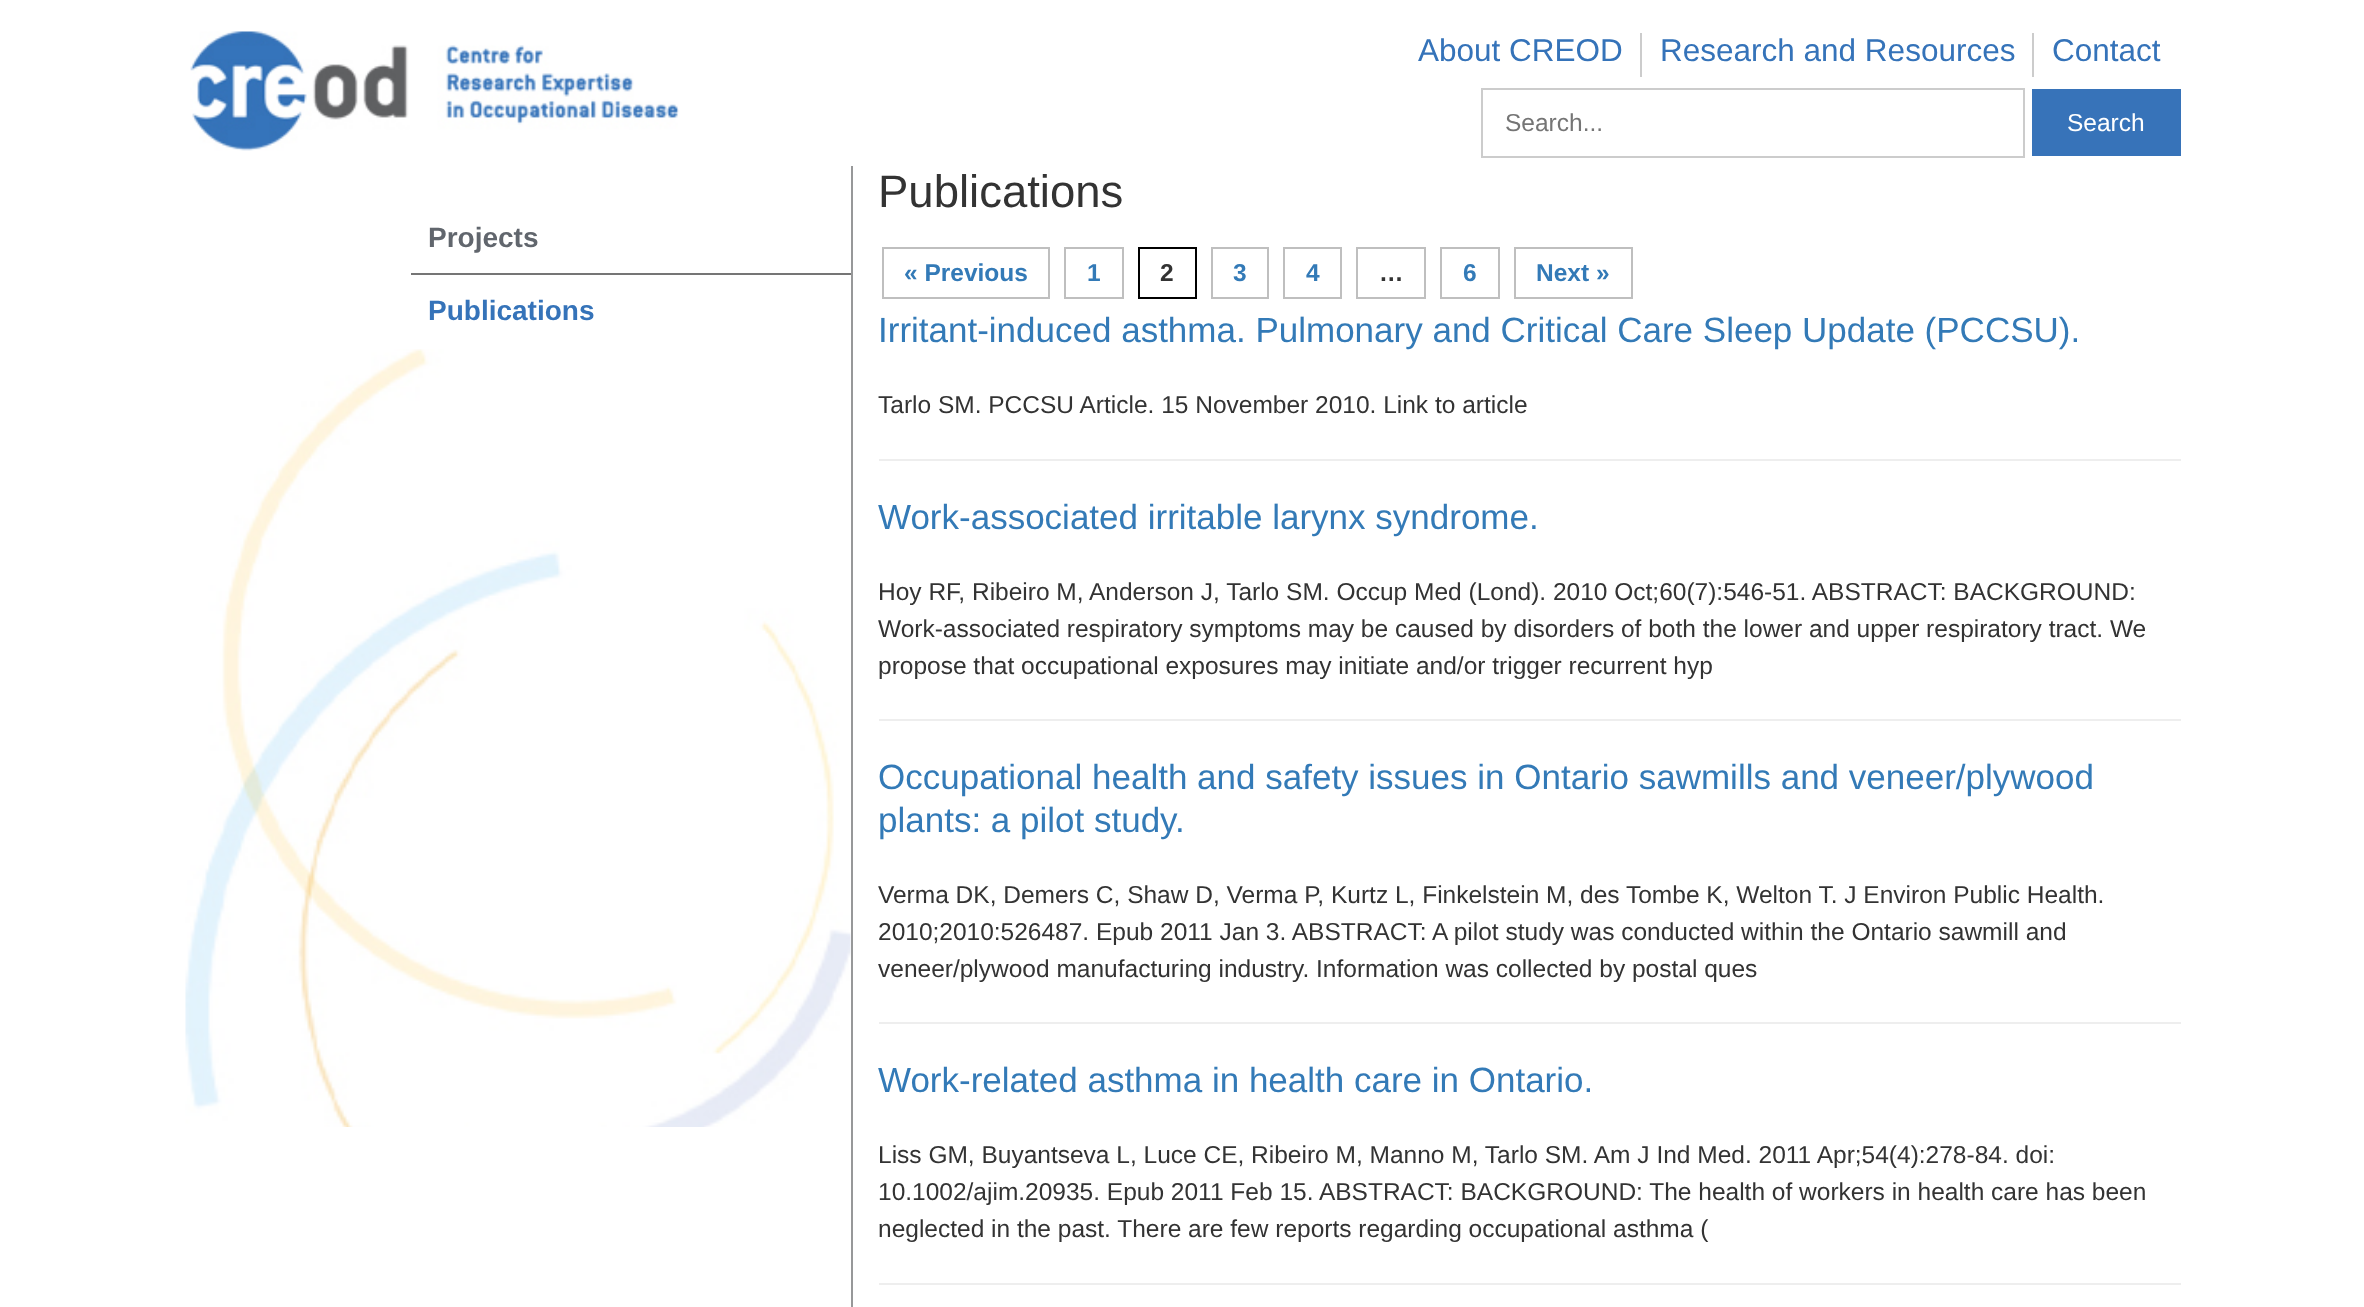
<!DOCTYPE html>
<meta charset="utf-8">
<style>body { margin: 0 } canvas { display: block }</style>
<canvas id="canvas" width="2364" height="1307"></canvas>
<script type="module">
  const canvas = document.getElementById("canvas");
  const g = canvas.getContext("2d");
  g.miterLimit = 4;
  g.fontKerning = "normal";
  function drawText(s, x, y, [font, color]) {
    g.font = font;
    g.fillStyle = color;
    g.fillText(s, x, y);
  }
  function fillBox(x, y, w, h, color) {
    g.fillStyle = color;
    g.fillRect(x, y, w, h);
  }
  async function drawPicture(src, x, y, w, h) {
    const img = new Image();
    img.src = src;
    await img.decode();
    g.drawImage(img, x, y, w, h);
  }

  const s1 = ["31.5px Liberation Sans", "#3573B9"];
  const s2 = ["24.5px Liberation Sans", "#757575"];
  const s3 = ["24.5px Liberation Sans", "#FFFFFF"];
  const s4 = ["bold 28px Liberation Sans", "#61666D"];
  const s5 = ["bold 28px Liberation Sans", "#3573B9"];
  const s6 = ["45.5px Liberation Sans", "#333333"];
  const s7 = ["bold 24.5px Liberation Sans", "#337AB7"];
  const s8 = ["bold 24.5px Liberation Sans", "#333333"];
  const s9 = ["35px Liberation Sans", "#337AB7"];
  const s10 = ["24.5px Liberation Sans", "#333333"];

  fillBox(0, 0, 2364, 1307, "#FFFFFF");
  await drawPicture("pic1.png", 190, 31, 489, 120);
  fillBox(1640, 33, 2, 44, "#CCCCCC");
  drawText("About CREOD", 1418, 61, s1);
  fillBox(2032, 33, 2, 44, "#CCCCCC");
  drawText("Research and Resources", 1660, 61, s1);
  drawText("Contact", 2052, 61, s1);
  g.strokeStyle = "#CCCCCC";
  g.lineWidth = 2;
  g.strokeRect(1482, 89, 542, 68);
  drawText("Search...", 1505, 131, s2);
  fillBox(2032, 89, 149, 67, "#3773B9");
  drawText("Search", 2067, 131, s3);
  await drawPicture("pic2.png", 185, 349, 666, 778);
  fillBox(411, 273, 440, 2, "#757575");
  drawText("Projects", 428, 247, s4);
  drawText("Publications", 428, 320, s5);
  fillBox(851, 166, 2, 1141, "#979899");
  drawText("Publications", 878, 207, s6);
  g.strokeStyle = "#BFBFBF";
  g.strokeRect(883, 248, 166, 50);
  drawText("« Previous", 904, 281, s7);
  g.strokeRect(1065, 248, 58, 50);
  drawText("1", 1087, 281, s7);
  g.strokeStyle = "#000000";
  g.strokeRect(1139, 248, 57, 50);
  drawText("2", 1160, 281, s8);
  g.strokeStyle = "#BFBFBF";
  g.strokeRect(1212, 248, 56, 50);
  drawText("3", 1233, 281, s7);
  g.strokeRect(1284, 248, 57, 50);
  drawText("4", 1306, 281, s7);
  g.strokeRect(1357, 248, 68, 50);
  drawText("…", 1379, 281, s8);
  g.strokeRect(1441, 248, 58, 50);
  drawText("6", 1463, 281, s7);
  g.strokeRect(1515, 248, 117, 50);
  drawText("Next »", 1536, 281, s7);
  drawText("Irritant-induced asthma. Pulmonary and Critical Care Sleep Update (PCCSU).", 878, 342, s9);
  drawText("Tarlo SM. PCCSU Article. 15 November 2010. Link to article", 878, 413, s10);
  fillBox(879, 459, 1302, 2, "#EEEEEE");
  drawText("Work-associated irritable larynx syndrome.", 878, 529, s9);
  drawText("Hoy RF, Ribeiro M, Anderson J, Tarlo SM. Occup Med (Lond). 2010 Oct;60(7):546-51. ABSTRACT: BACKGROUND:", 878, 600, s10);
  drawText("Work-associated respiratory symptoms may be caused by disorders of both the lower and upper respiratory tract. We", 878, 637, s10);
  drawText("propose that occupational exposures may initiate and/or trigger recurrent hyp", 878, 674, s10);
  fillBox(879, 719, 1302, 2, "#EEEEEE");
  drawText("Occupational health and safety issues in Ontario sawmills and veneer/plywood", 878, 789, s9);
  drawText("plants: a pilot study.", 878, 832, s9);
  drawText("Verma DK, Demers C, Shaw D, Verma P, Kurtz L, Finkelstein M, des Tombe K, Welton T. J Environ Public Health.", 878, 903, s10);
  drawText("2010;2010:526487. Epub 2011 Jan 3. ABSTRACT: A pilot study was conducted within the Ontario sawmill and", 878, 940, s10);
  drawText("veneer/plywood manufacturing industry. Information was collected by postal ques", 878, 977, s10);
  fillBox(879, 1022, 1302, 2, "#EEEEEE");
  drawText("Work-related asthma in health care in Ontario.", 878, 1092, s9);
  drawText("Liss GM, Buyantseva L, Luce CE, Ribeiro M, Manno M, Tarlo SM. Am J Ind Med. 2011 Apr;54(4):278-84. doi:", 878, 1163, s10);
  drawText("10.1002/ajim.20935. Epub 2011 Feb 15. ABSTRACT: BACKGROUND: The health of workers in health care has been", 878, 1200, s10);
  drawText("neglected in the past. There are few reports regarding occupational asthma (", 878, 1237, s10);
  fillBox(879, 1283, 1302, 2, "#EEEEEE");
</script>
